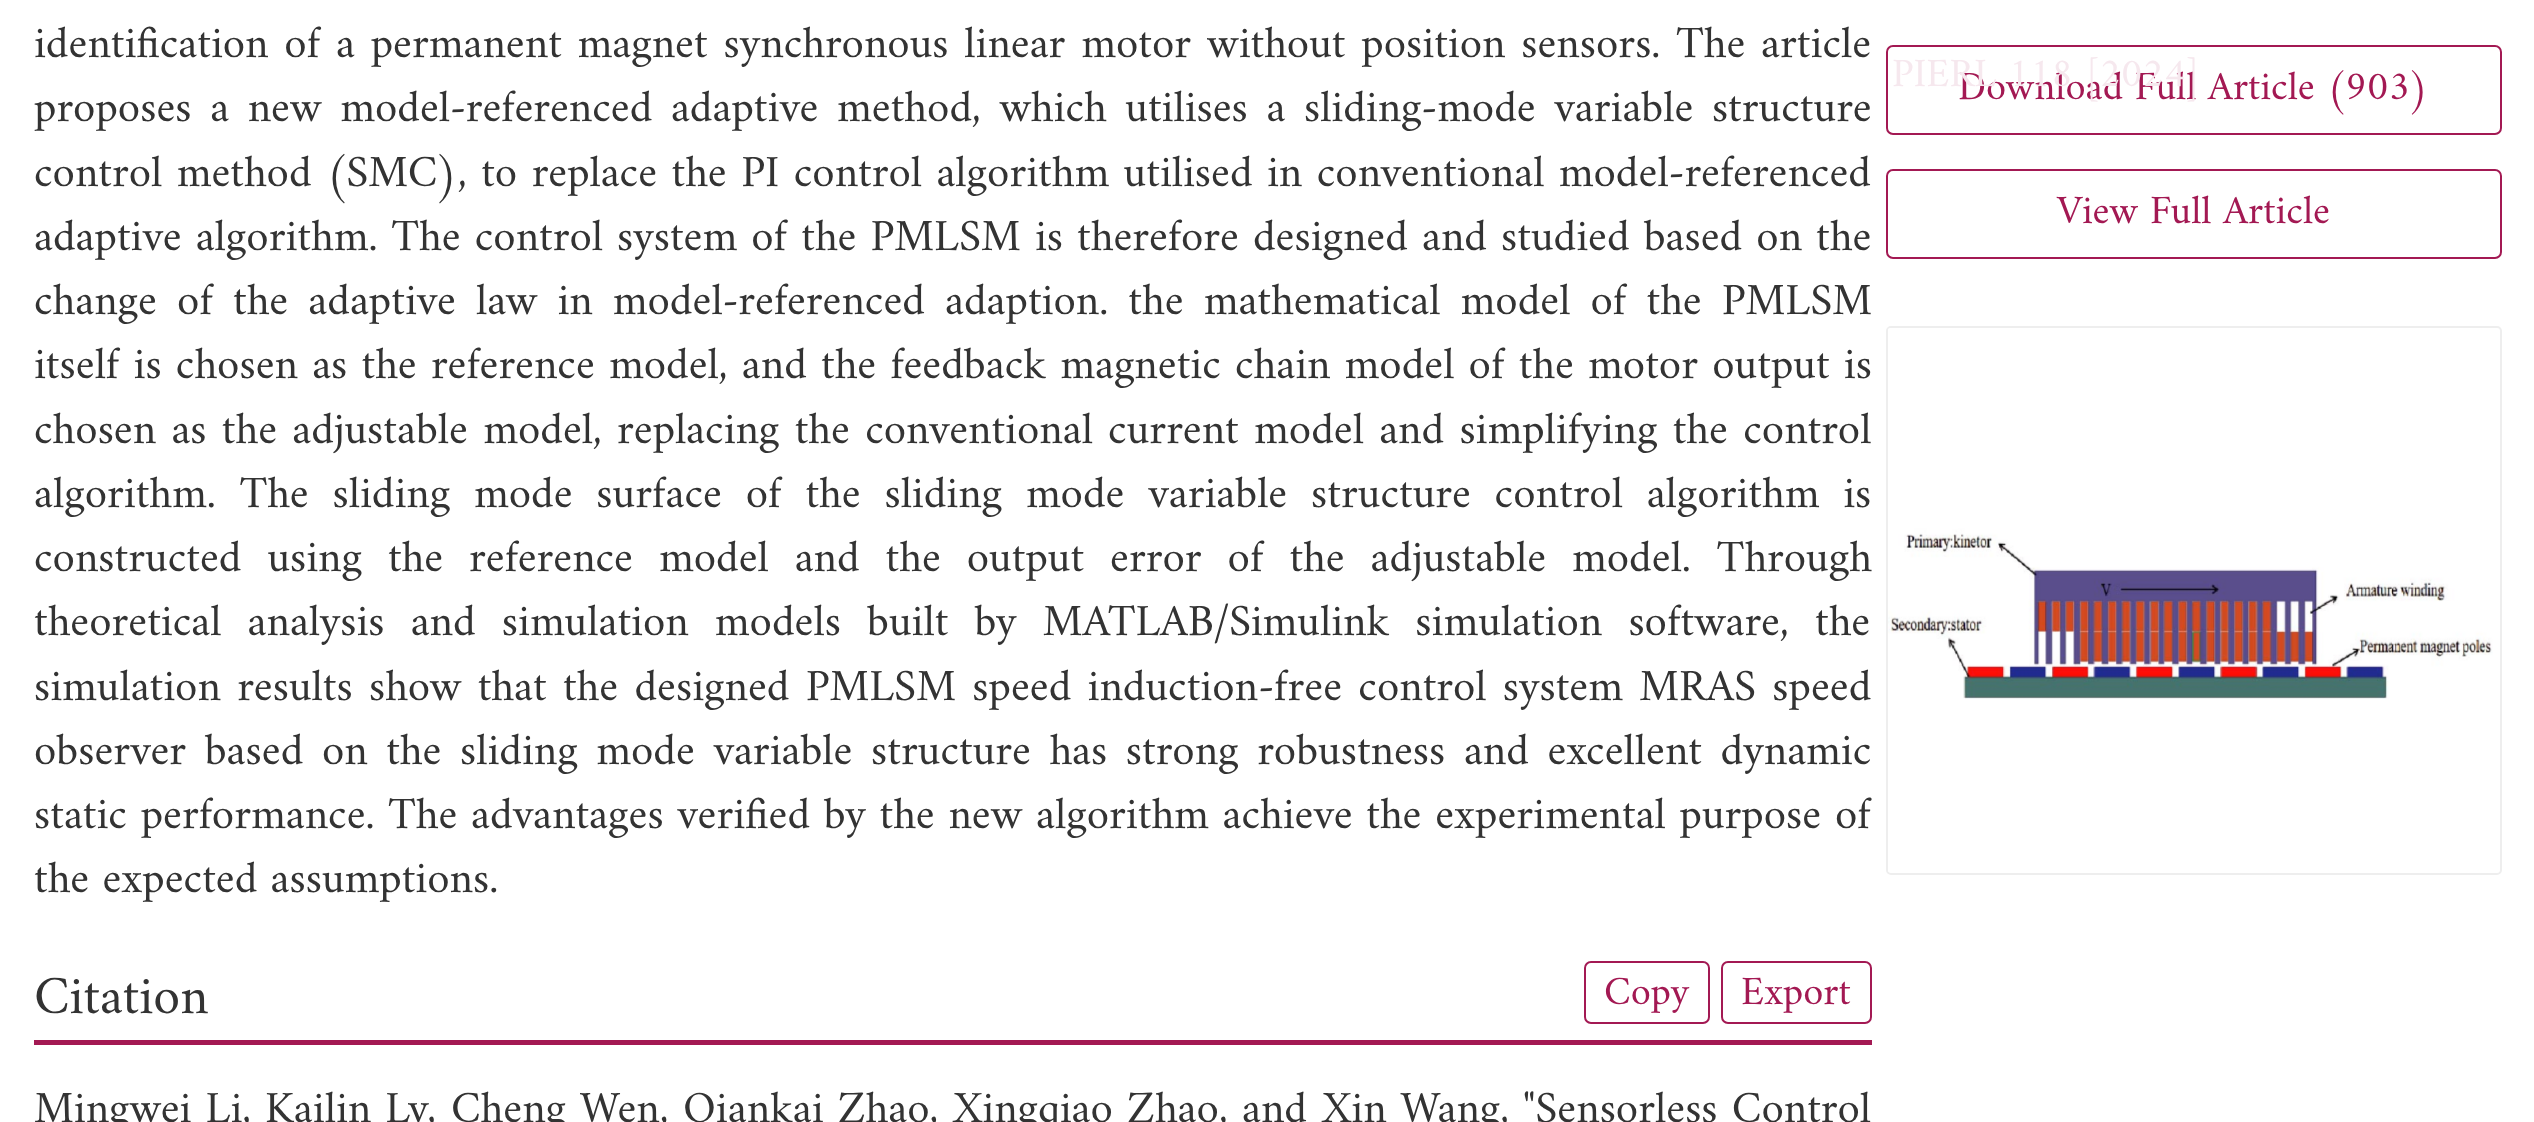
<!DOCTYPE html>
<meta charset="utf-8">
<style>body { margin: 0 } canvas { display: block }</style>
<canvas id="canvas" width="2534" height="1122"></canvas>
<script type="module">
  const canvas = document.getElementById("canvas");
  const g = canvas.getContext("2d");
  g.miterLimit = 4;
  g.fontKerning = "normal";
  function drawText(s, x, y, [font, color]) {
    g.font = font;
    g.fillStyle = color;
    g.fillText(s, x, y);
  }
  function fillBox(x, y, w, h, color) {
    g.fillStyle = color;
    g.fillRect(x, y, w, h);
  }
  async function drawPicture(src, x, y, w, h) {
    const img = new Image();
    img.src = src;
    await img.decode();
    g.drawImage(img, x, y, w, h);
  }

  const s1 = ["45px Amiri", "#333333"];
  const s2 = ["54px Amiri", "#333333"];
  const s3 = ["40.5px Amiri", "#A31953"];
  const s4 = ["40.5px Amiri", "#F6E8EE"];

  fillBox(0, 0, 2534, 1122, "#FFFFFF");
  g.wordSpacing = "2.6px";
  drawText("identification of a permanent magnet synchronous linear motor without position sensors. The article", 34, 57, s1);
  g.wordSpacing = "5.4px";
  drawText("proposes a new model-referenced adaptive method, which utilises a sliding-mode variable structure", 34, 121, s1);
  g.wordSpacing = "1.25px";
  drawText("control method (SMC), to replace the PI control algorithm utilised in conventional model-referenced", 34, 186, s1);
  g.wordSpacing = "0.9px";
  drawText("adaptive algorithm. The control system of the PMLSM is therefore designed and studied based on the", 34, 250, s1);
  g.wordSpacing = "6.9px";
  drawText("change of the adaptive law in model-referenced adaption. the mathematical model of the PMLSM", 34, 314, s1);
  g.wordSpacing = "1px";
  drawText("itself is chosen as the reference model, and the feedback magnetic chain model of the motor output is", 34, 378, s1);
  g.wordSpacing = "2.1px";
  drawText("chosen as the adjustable model, replacing the conventional current model and simplifying the control", 34, 443, s1);
  g.wordSpacing = "10.6px";
  drawText("algorithm. The sliding mode surface of the sliding mode variable structure control algorithm is", 34, 507, s1);
  g.wordSpacing = "12.75px";
  drawText("constructed using the reference model and the output error of the adjustable model. Through", 34, 571, s1);
  g.wordSpacing = "13px";
  drawText("theoretical analysis and simulation models built by MATLAB/Simulink simulation software, the", 34, 635, s1);
  g.wordSpacing = "3.1px";
  drawText("simulation results show that the designed PMLSM speed induction-free control system MRAS speed", 34, 700, s1);
  g.wordSpacing = "5.4px";
  drawText("observer based on the sliding mode variable structure has strong robustness and excellent dynamic", 34, 764, s1);
  g.wordSpacing = "0.5px";
  drawText("static performance. The advantages verified by the new algorithm achieve the experimental purpose of", 34, 828, s1);
  g.wordSpacing = "0px";
  drawText("the expected assumptions.", 34, 892, s1);
  fillBox(34, 1040, 1838, 5, "#A31953");
  drawText("Citation", 34, 1013, s2);
  g.beginPath();
  g.roundRect(1585, 962, 124, 61, 6);
  g.strokeStyle = "#A31953";
  g.lineWidth = 2;
  g.stroke();
  drawText("Copy", 1604, 1004, s3);
  g.beginPath();
  g.roundRect(1722, 962, 149, 61, 6);
  g.stroke();
  drawText("Export", 1741, 1004, s3);
  g.wordSpacing = "1px";
  drawText("Mingwei Li,", 34, 1122, s1);
  drawText("Kailin Lv,", 265, 1122, s1);
  drawText("Cheng Wen,", 451, 1122, s1);
  drawText("Qiankai Zhao,", 683, 1122, s1);
  drawText("Xingqiao Zhao,", 953, 1122, s1);
  g.wordSpacing = "0px";
  drawText("and", 1242, 1122, s1);
  g.wordSpacing = "1px";
  drawText("Xin Wang,", 1322, 1122, s1);
  drawText("\"Sensorless Control", 1523, 1122, s1);
  g.beginPath();
  g.roundRect(1887, 46, 614, 88, 6);
  g.stroke();
  g.wordSpacing = "0px";
  drawText("Download Full Article (903)", 1958, 99, s3);
  g.beginPath();
  g.roundRect(1887, 170, 614, 88, 6);
  g.stroke();
  drawText("View Full Article", 2057, 223, s3);
  g.beginPath();
  g.roundRect(1887, 327, 614, 547, 4);
  g.strokeStyle = "#EEEEEE";
  g.stroke();
  await drawPicture("pic1.png", 1888, 328, 605, 544);
  drawText("PIERL 118 [2024]", 1892, 86, s4);
</script>
